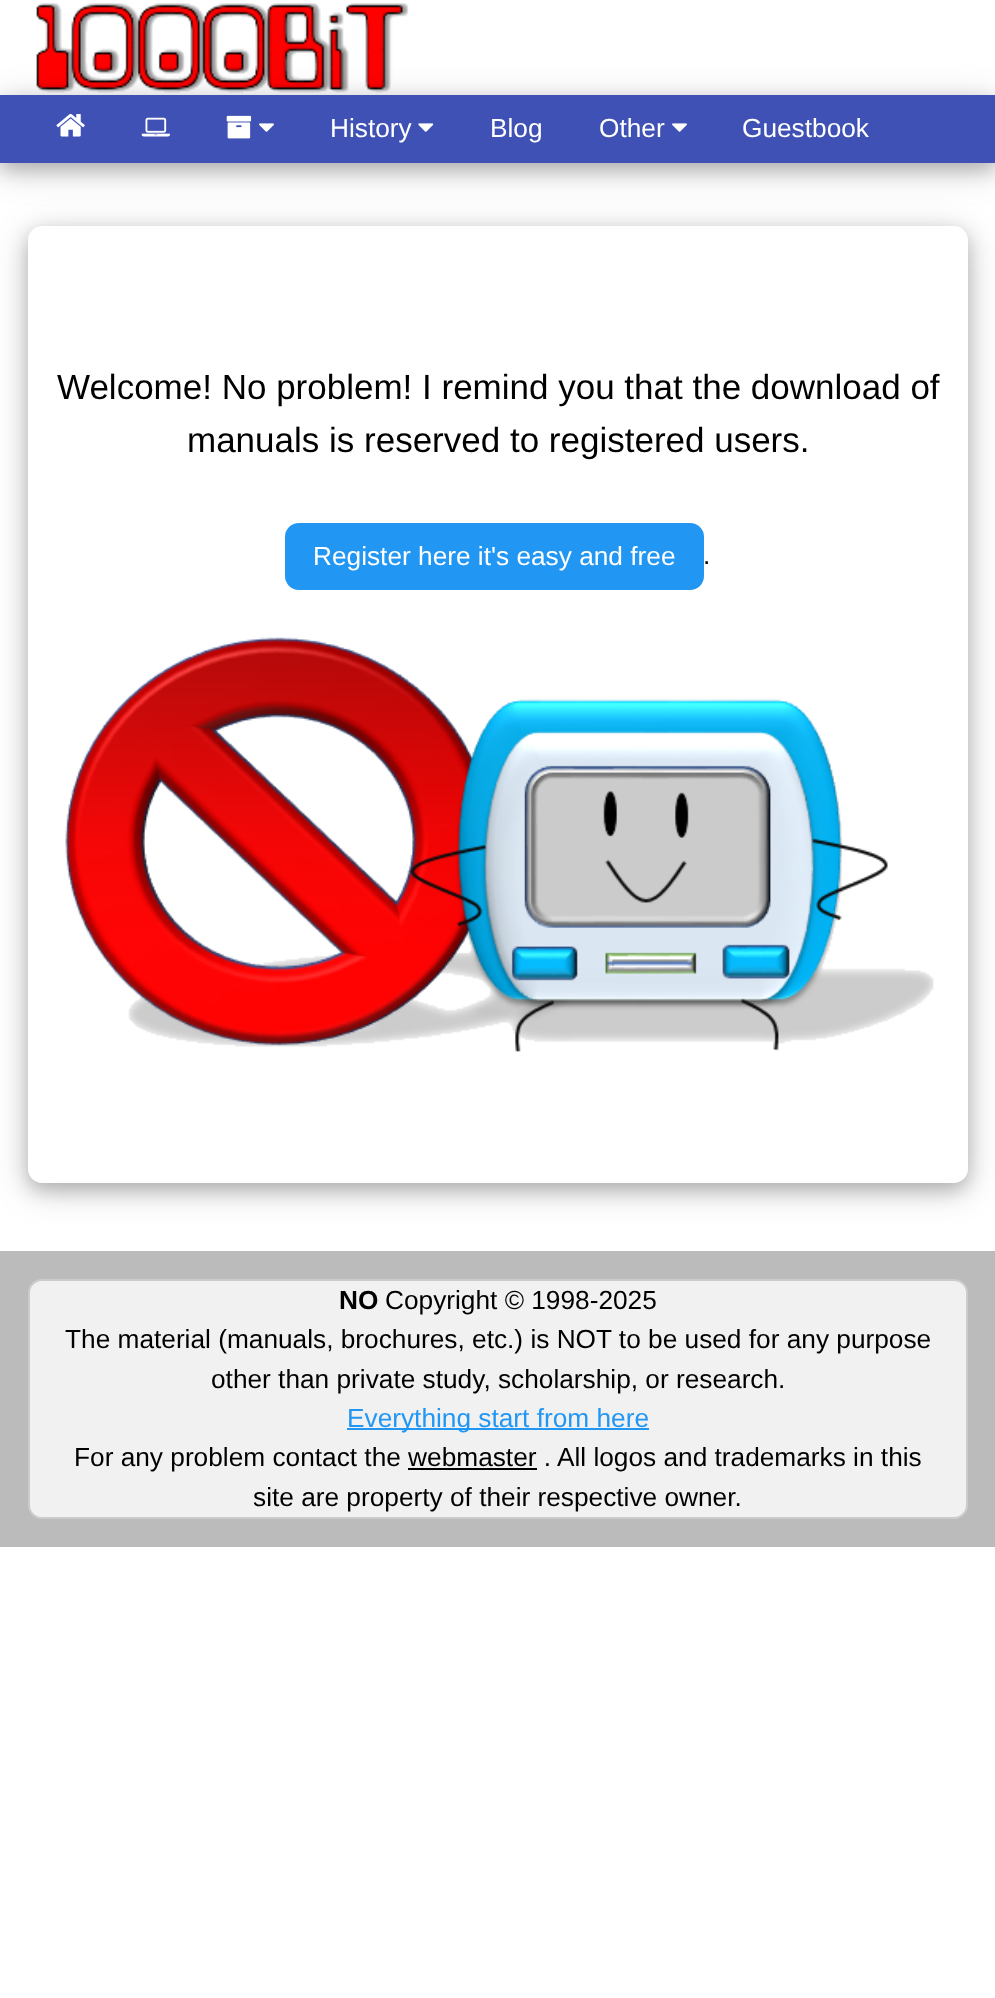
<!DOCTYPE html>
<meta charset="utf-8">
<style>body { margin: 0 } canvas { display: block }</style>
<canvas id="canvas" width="995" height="1998"></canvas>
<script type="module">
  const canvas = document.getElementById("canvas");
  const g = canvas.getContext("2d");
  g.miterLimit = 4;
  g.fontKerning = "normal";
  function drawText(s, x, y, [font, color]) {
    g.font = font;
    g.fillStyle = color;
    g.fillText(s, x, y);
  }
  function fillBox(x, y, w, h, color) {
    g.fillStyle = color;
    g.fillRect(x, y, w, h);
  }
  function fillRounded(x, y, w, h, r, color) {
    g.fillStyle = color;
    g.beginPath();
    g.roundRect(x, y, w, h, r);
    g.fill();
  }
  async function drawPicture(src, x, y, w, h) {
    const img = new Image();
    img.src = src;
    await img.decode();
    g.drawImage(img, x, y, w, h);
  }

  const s1 = ["26.25px Liberation Sans", "#FFFFFF"];
  const s2 = ["35px Liberation Sans", "#000000"];
  const s3 = ["26.25px Liberation Sans", "#000000"];
  const s4 = ["bold 26.25px Liberation Sans", "#000000"];
  const s5 = ["26.25px Liberation Sans", "#2196F3"];

  fillBox(0, 0, 995, 1998, "#FFFFFF");
  await drawPicture("pic1.png", 36, 3, 373, 90);
  g.fillStyle = "rgba(0, 0, 0, 0.19)";
  g.filter = "blur(17.5px)";
  g.beginPath();
  g.rect(0, 102, 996, 68);
  g.fill();
  g.filter = "none";
  g.fillStyle = "rgba(0, 0, 0, 0.2)";
  g.filter = "blur(9px)";
  g.beginPath();
  g.rect(0, 102, 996, 68);
  g.fill();
  g.filter = "none";
  fillBox(0, 95, 995, 68, "#3F51B5");
  await drawPicture("pic2.png", 56, 114, 29, 23);
  await drawPicture("pic3.png", 141, 117, 29, 20);
  await drawPicture("pic4.png", 226, 115, 26, 24);
  await drawPicture("pic5.png", 259, 123, 15, 9);
  drawText("History", 330, 137, s1);
  await drawPicture("pic6.png", 418, 123, 16, 9);
  drawText("Blog", 490, 137, s1);
  drawText("Other", 599, 137, s1);
  await drawPicture("pic5.png", 672, 123, 15, 9);
  drawText("Guestbook", 742, 137, s1);
  g.save();
  g.beginPath();
  g.moveTo(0, 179);
  g.lineTo(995, 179);
  g.lineTo(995, 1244);
  g.lineTo(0, 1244);
  g.closePath();
  g.moveTo(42, 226);
  g.lineTo(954, 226);
  g.bezierCurveTo(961.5, 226, 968, 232.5, 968, 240);
  g.lineTo(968, 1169);
  g.bezierCurveTo(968, 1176.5, 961.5, 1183, 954, 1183);
  g.lineTo(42, 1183);
  g.bezierCurveTo(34.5, 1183, 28, 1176.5, 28, 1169);
  g.lineTo(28, 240);
  g.bezierCurveTo(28, 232.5, 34.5, 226, 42, 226);
  g.closePath();
  g.clip("evenodd");
  g.fillStyle = "rgba(0, 0, 0, 0.19)";
  g.filter = "blur(17.5px)";
  g.beginPath();
  g.roundRect(28, 233, 940, 957, 14);
  g.fill();
  g.filter = "none";
  g.restore();
  g.save();
  g.beginPath();
  g.moveTo(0, 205);
  g.lineTo(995, 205);
  g.lineTo(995, 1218);
  g.lineTo(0, 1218);
  g.closePath();
  g.moveTo(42, 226);
  g.lineTo(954, 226);
  g.bezierCurveTo(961.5, 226, 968, 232.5, 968, 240);
  g.lineTo(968, 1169);
  g.bezierCurveTo(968, 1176.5, 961.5, 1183, 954, 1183);
  g.lineTo(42, 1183);
  g.bezierCurveTo(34.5, 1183, 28, 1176.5, 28, 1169);
  g.lineTo(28, 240);
  g.bezierCurveTo(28, 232.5, 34.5, 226, 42, 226);
  g.closePath();
  g.clip("evenodd");
  g.fillStyle = "rgba(0, 0, 0, 0.2)";
  g.filter = "blur(9px)";
  g.beginPath();
  g.roundRect(28, 233, 940, 957, 14);
  g.fill();
  g.filter = "none";
  g.restore();
  drawText("Welcome! No problem! I remind you that the download of", 57, 399, s2);
  drawText("manuals is reserved to registered users.", 187, 452, s2);
  fillRounded(285, 523, 419, 67, 14, "#2196F3");
  drawText("Register here it's easy and free", 313, 565, s1);
  drawText(".", 703, 564, s3);
  await drawPicture("pic7.png", 65, 637, 869, 415);
  fillBox(0, 1251, 995, 296, "#BBBBBB");
  g.fillStyle = "#F1F1F1";
  g.beginPath();
  g.roundRect(29, 1280, 938, 238, 13);
  g.fill();
  g.strokeStyle = "#CCCCCC";
  g.lineWidth = 2;
  g.stroke();
  drawText("NO", 339, 1309, s4);
  drawText("Copyright © 1998-2025", 385, 1309, s3);
  drawText("The material (manuals, brochures, etc.) is NOT to be used for any purpose", 65, 1348, s3);
  drawText("other than private study, scholarship, or research.", 211, 1388, s3);
  fillBox(347, 1428, 302, 2, "#2196F3");
  drawText("Everything start from here", 347, 1427, s5);
  drawText("For any problem contact the webmaster . All logos and trademarks in this", 74, 1466, s3);
  fillBox(408, 1468, 129, 2, "#000000");
  drawText("site are property of their respective owner.", 253, 1506, s3);
</script>
